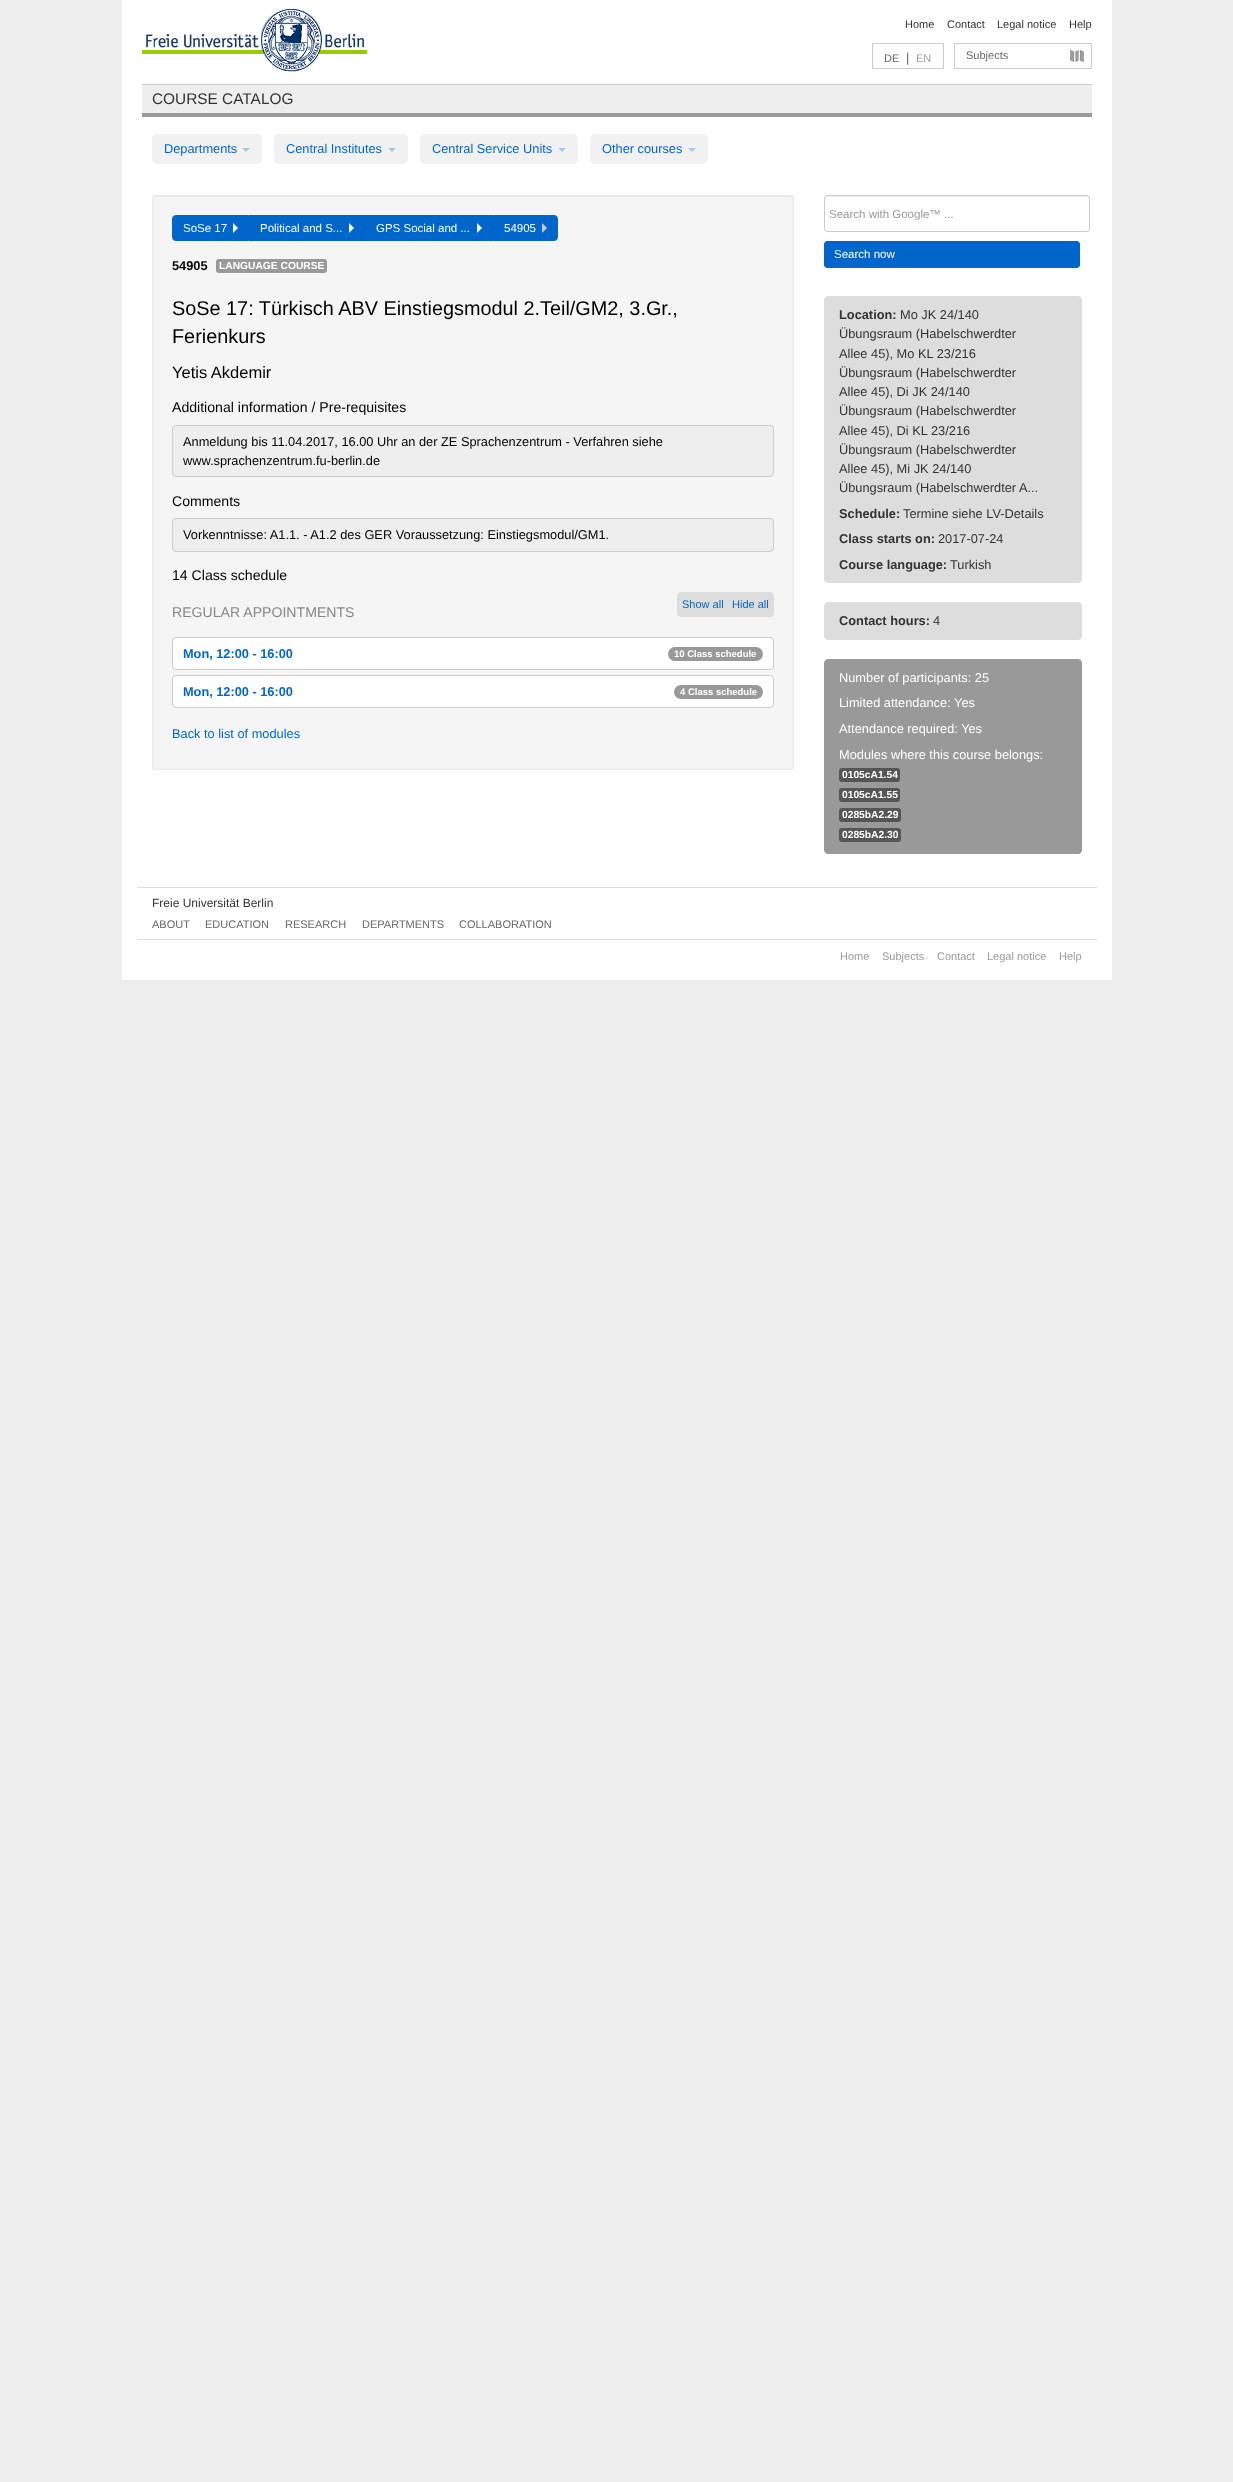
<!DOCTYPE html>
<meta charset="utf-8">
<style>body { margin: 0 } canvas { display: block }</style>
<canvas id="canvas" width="1233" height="2482"></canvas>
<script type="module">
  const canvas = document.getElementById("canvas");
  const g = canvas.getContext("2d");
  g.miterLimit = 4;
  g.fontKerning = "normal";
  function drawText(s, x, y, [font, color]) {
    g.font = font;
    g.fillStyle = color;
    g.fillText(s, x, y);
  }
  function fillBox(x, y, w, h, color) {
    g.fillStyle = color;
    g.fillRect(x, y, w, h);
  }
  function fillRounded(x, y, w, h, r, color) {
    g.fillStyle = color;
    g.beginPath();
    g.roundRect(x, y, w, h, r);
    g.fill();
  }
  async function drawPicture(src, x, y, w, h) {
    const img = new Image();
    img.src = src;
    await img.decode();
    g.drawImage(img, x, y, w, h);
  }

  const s1 = ["11px Liberation Sans", "#333333"];
  const s2 = ["11px Liberation Sans", "#666666"];
  const s3 = ["12.8px Liberation Sans", "#666666"];
  const s4 = ["11px Liberation Sans", "#999999"];
  const s5 = ["15.4px Liberation Sans", "#333333"];
  const s6 = ["12.8px Liberation Sans", "#0066CC"];
  const s7 = ["11.5px Liberation Sans", "#FFFFFF"];
  const s8 = ["bold 12.8px Liberation Sans", "#000000"];
  const s9 = ["bold 10.25px Liberation Sans", "#FFFFFF"];
  const s10 = ["19.85px Liberation Sans", "#000000"];
  const s11 = ["16.5px Liberation Sans", "#000000"];
  const s12 = ["14.1px Liberation Sans", "#000000"];
  const s13 = ["12.8px Liberation Sans", "#000000"];
  const s14 = ["11px Liberation Sans", "#0066CC"];
  const s15 = ["14.1px Liberation Sans", "#888888"];
  const s16 = ["bold 12.75px Liberation Sans", "#0066CC"];
  const s17 = ["bold 9.5px Liberation Sans", "#FFFFFF"];
  const s18 = ["11.5px Liberation Sans", "#999999"];
  const s19 = ["bold 12.8px Liberation Sans", "#333333"];
  const s20 = ["12.8px Liberation Sans", "#333333"];
  const s21 = ["12.8px Liberation Sans", "#FFFFFF"];
  const s22 = ["12px Liberation Sans", "#333333"];

  fillBox(0, 0, 1233, 2482, "#EEEEEE");
  fillBox(122, 0, 990, 980, "#FFFFFF");
  await drawPicture("pic1.png", 142, 9, 225, 63);
  drawText("Home", 905, 28, s1);
  drawText("Contact", 947, 28, s1);
  drawText("Legal notice", 997, 28, s1);
  drawText("Help", 1069, 28, s1);
  g.strokeStyle = "#CCCCCC";
  g.strokeRect(872.5, 43.5, 71, 25);
  drawText("DE", 884, 62, s2);
  drawText("|", 906, 62, s3);
  drawText("EN", 916, 62, s4);
  g.strokeRect(954.5, 43.5, 137, 25);
  await drawPicture("pic2.png", 1070, 49, 14, 14);
  drawText("Subjects", 966, 59, s2);
  fillBox(142, 85, 950, 28, "#EEEEEE");
  fillBox(142, 84, 950, 1, "#CCCCCC");
  fillBox(142, 113, 950, 4, "#999999");
  drawText("COURSE CATALOG", 152, 104, s5);
  fillRounded(152, 134, 110, 30, 5, "#F1F1F1");
  drawText("Departments", 164, 153, s6);
  g.fillStyle = "#A9C7E6";
  g.beginPath();
  g.moveTo(242, 148);
  g.lineTo(250, 148);
  g.lineTo(246, 152);
  g.closePath();
  g.fill();
  fillRounded(274, 134, 134, 30, 5, "#F1F1F1");
  drawText("Central Institutes", 286, 153, s6);
  g.fillStyle = "#A9C7E6";
  g.beginPath();
  g.moveTo(388, 148);
  g.lineTo(396, 148);
  g.lineTo(392, 152);
  g.closePath();
  g.fill();
  fillRounded(420, 134, 158, 30, 5, "#F1F1F1");
  drawText("Central Service Units", 432, 153, s6);
  g.fillStyle = "#A9C7E6";
  g.beginPath();
  g.moveTo(558, 148);
  g.lineTo(566, 148);
  g.lineTo(562, 152);
  g.closePath();
  g.fill();
  fillRounded(590, 134, 118, 30, 5, "#F1F1F1");
  drawText("Other courses", 602, 153, s6);
  g.fillStyle = "#A9C7E6";
  g.beginPath();
  g.moveTo(688, 148);
  g.lineTo(696, 148);
  g.lineTo(692, 152);
  g.closePath();
  g.fill();
  fillRounded(152, 195, 642, 575, 4, "#F5F5F5");
  g.fillStyle = "#E9E9E9";
  g.beginPath();
  g.moveTo(156, 197);
  g.lineTo(790, 197);
  g.bezierCurveTo(792, 197, 793, 198, 793, 200);
  g.lineTo(793, 199);
  g.bezierCurveTo(793, 197, 792, 196, 790, 196);
  g.lineTo(156, 196);
  g.bezierCurveTo(154, 196, 153, 197, 153, 199);
  g.lineTo(153, 200);
  g.bezierCurveTo(153, 198, 154, 197, 156, 197);
  g.closePath();
  g.fill();
  g.strokeStyle = "rgba(0, 0, 0, 0.05)";
  g.strokeRect(152.5, 195.5, 641, 574);
  g.fillStyle = "#0066CC";
  g.beginPath();
  g.roundRect(172.5, 215.5, 76, 25, [3.5, 0, 0, 3.5]);
  g.fill();
  g.strokeStyle = "#0066CC";
  g.stroke();
  drawText("SoSe 17", 183, 232, s7);
  g.beginPath();
  g.moveTo(233, 233);
  g.lineTo(233, 223);
  g.lineTo(238, 228);
  g.closePath();
  g.fill();
  fillBox(249, 215, 244, 26, "#0066CC");
  drawText("Political and S...", 260, 232, s7);
  g.beginPath();
  g.moveTo(349, 233);
  g.lineTo(349, 223);
  g.lineTo(354, 228);
  g.closePath();
  g.fill();
  drawText("GPS Social and ...", 376, 232, s7);
  g.beginPath();
  g.moveTo(477, 233);
  g.lineTo(477, 223);
  g.lineTo(482, 228);
  g.closePath();
  g.fill();
  g.fillStyle = "#0066CC";
  g.beginPath();
  g.roundRect(493.5, 215.5, 64, 25, [0, 3.5, 3.5, 0]);
  g.fill();
  g.stroke();
  drawText("54905", 504, 232, s7);
  g.fillStyle = "#CCCCCC";
  g.beginPath();
  g.moveTo(542, 233);
  g.lineTo(542, 223);
  g.lineTo(547, 228);
  g.closePath();
  g.fill();
  drawText("54905", 172, 270, s8);
  fillRounded(216, 259, 111, 14, 3, "#999999");
  drawText("LANGUAGE COURSE", 219, 269, s9);
  drawText("SoSe 17: Türkisch ABV Einstiegsmodul 2.Teil/GM2, 3.Gr.,", 172, 315, s10);
  drawText("Ferienkurs", 172, 343, s10);
  drawText("Yetis Akdemir", 172, 378, s11);
  drawText("Additional information / Pre-requisites", 172, 412, s12);
  g.fillStyle = "#EEEEEE";
  g.beginPath();
  g.roundRect(172.5, 425.5, 601, 51, 3.5);
  g.fill();
  g.strokeStyle = "#CCCCCC";
  g.stroke();
  drawText("Anmeldung bis 11.04.2017, 16.00 Uhr an der ZE Sprachenzentrum - Verfahren siehe", 183, 446, s13);
  drawText("www.sprachenzentrum.fu-berlin.de", 183, 465, s13);
  drawText("Comments", 172, 506, s12);
  g.fillStyle = "#EEEEEE";
  g.beginPath();
  g.roundRect(172.5, 518.5, 601, 33, 3.5);
  g.fill();
  g.stroke();
  drawText("Vorkenntnisse: A1.1. - A1.2 des GER Voraussetzung: Einstiegsmodul/GM1.", 183, 539, s13);
  drawText("14 Class schedule", 172, 580, s12);
  g.fillStyle = "#DDDDDD";
  g.beginPath();
  g.roundRect(677.5, 592.5, 50, 24, [3.5, 0, 0, 3.5]);
  g.fill();
  g.strokeStyle = "#DDDDDD";
  g.stroke();
  drawText("Show all", 682, 608, s14);
  g.fillStyle = "#DDDDDD";
  g.beginPath();
  g.roundRect(727.5, 592.5, 46, 24, [0, 3.5, 3.5, 0]);
  g.fill();
  g.stroke();
  drawText("Hide all", 732, 608, s14);
  drawText("REGULAR APPOINTMENTS", 172, 617, s15);
  g.fillStyle = "#FFFFFF";
  g.beginPath();
  g.roundRect(172.5, 637.5, 601, 32, 3.5);
  g.fill();
  g.strokeStyle = "#CCCCCC";
  g.stroke();
  drawText("Mon, 12:00 - 16:00", 183, 658, s16);
  fillRounded(668, 647, 95, 14, 7, "#999999");
  drawText("10 Class schedule", 674, 657, s17);
  g.beginPath();
  g.roundRect(172.5, 675.5, 601, 32, 3.5);
  g.fill();
  g.stroke();
  drawText("Mon, 12:00 - 16:00", 183, 696, s16);
  fillRounded(674, 685, 89, 14, 7, "#999999");
  drawText("4 Class schedule", 680, 695, s17);
  drawText("Back to list of modules", 172, 738, s6);
  g.fillStyle = "#ECECEC";
  g.beginPath();
  g.moveTo(827, 197);
  g.lineTo(1087, 197);
  g.bezierCurveTo(1088, 197, 1089, 198, 1089, 199);
  g.lineTo(1089, 198);
  g.bezierCurveTo(1089, 197, 1088, 196, 1087, 196);
  g.lineTo(827, 196);
  g.bezierCurveTo(826, 196, 825, 197, 825, 198);
  g.lineTo(825, 199);
  g.bezierCurveTo(825, 198, 826, 197, 827, 197);
  g.closePath();
  g.fill();
  g.beginPath();
  g.roundRect(824.5, 195.5, 265, 36, 2.5);
  g.stroke();
  g.save();
  g.beginPath();
  g.rect(829, 208, 256, 12);
  g.clip();
  drawText("Search with Google™ ...", 829, 218, s18);
  g.restore();
  fillRounded(824, 241, 256, 27, 4, "#0066CC");
  g.fillStyle = "#005EBD";
  g.beginPath();
  g.moveTo(828, 243);
  g.lineTo(1077, 243);
  g.lineTo(1079, 244);
  g.lineTo(1079, 246);
  g.bezierCurveTo(1079, 244, 1078, 242, 1076, 242);
  g.lineTo(828, 242);
  g.bezierCurveTo(826, 242, 825, 244, 825, 246);
  g.bezierCurveTo(825, 244, 826, 243, 828, 243);
  g.closePath();
  g.fill();
  g.beginPath();
  g.roundRect(824.5, 241.5, 255, 26, 3.5);
  g.strokeStyle = "#0066CC";
  g.stroke();
  drawText("Search now", 834, 258, s7);
  g.fillStyle = "#DDDDDD";
  g.beginPath();
  g.roundRect(824.5, 296.5, 257, 286, 3.5);
  g.fill();
  g.strokeStyle = "#DDDDDD";
  g.stroke();
  drawText("Location:", 839, 319, s19);
  drawText("Mo JK 24/140", 900, 319, s20);
  drawText("Übungsraum (Habelschwerdter", 839, 338, s20);
  drawText("Allee 45), Mo KL 23/216", 839, 358, s20);
  drawText("Übungsraum (Habelschwerdter", 839, 377, s20);
  drawText("Allee 45), Di JK 24/140", 839, 396, s20);
  drawText("Übungsraum (Habelschwerdter", 839, 415, s20);
  drawText("Allee 45), Di KL 23/216", 839, 435, s20);
  drawText("Übungsraum (Habelschwerdter", 839, 454, s20);
  drawText("Allee 45), Mi JK 24/140", 839, 473, s20);
  drawText("Übungsraum (Habelschwerdter A...", 839, 492, s20);
  drawText("Schedule:", 839, 518, s19);
  drawText("Termine siehe LV-Details", 903, 518, s20);
  drawText("Class starts on:", 839, 543, s19);
  drawText("2017-07-24", 938, 543, s20);
  drawText("Course language:", 839, 569, s19);
  drawText("Turkish", 950, 569, s20);
  g.fillStyle = "#DDDDDD";
  g.beginPath();
  g.roundRect(824.5, 602.5, 257, 37, 3.5);
  g.fill();
  g.stroke();
  drawText("Contact hours:", 839, 625, s19);
  drawText("4", 933, 625, s20);
  g.fillStyle = "#999999";
  g.beginPath();
  g.roundRect(824.5, 659.5, 257, 194, 3.5);
  g.fill();
  g.strokeStyle = "#999999";
  g.stroke();
  drawText("Number of participants: 25", 839, 682, s21);
  drawText("Limited attendance: Yes", 839, 707, s21);
  drawText("Attendance required: Yes", 839, 733, s21);
  drawText("Modules where this course belongs:", 839, 759, s21);
  fillRounded(839, 768, 61, 14, 3, "#555555");
  drawText("0105cA1.54", 842, 778, s9);
  fillRounded(839, 788, 61, 14, 3, "#555555");
  drawText("0105cA1.55", 842, 798, s9);
  fillRounded(839, 808, 62, 14, 3, "#555555");
  drawText("0285bA2.29", 842, 818, s9);
  fillRounded(839, 828, 62, 14, 3, "#555555");
  drawText("0285bA2.30", 842, 838, s9);
  fillBox(137, 887, 960, 1, "#DDDDDD");
  drawText("Freie Universität Berlin", 152, 907, s22);
  drawText("ABOUT", 152, 928, s2);
  drawText("EDUCATION", 205, 928, s2);
  drawText("RESEARCH", 285, 928, s2);
  drawText("DEPARTMENTS", 362, 928, s2);
  drawText("COLLABORATION", 459, 928, s2);
  fillBox(137, 939, 960, 1, "#DDDDDD");
  drawText("Home", 840, 960, s4);
  drawText("Subjects", 882, 960, s4);
  drawText("Contact", 937, 960, s4);
  drawText("Legal notice", 987, 960, s4);
  drawText("Help", 1059, 960, s4);
</script>
